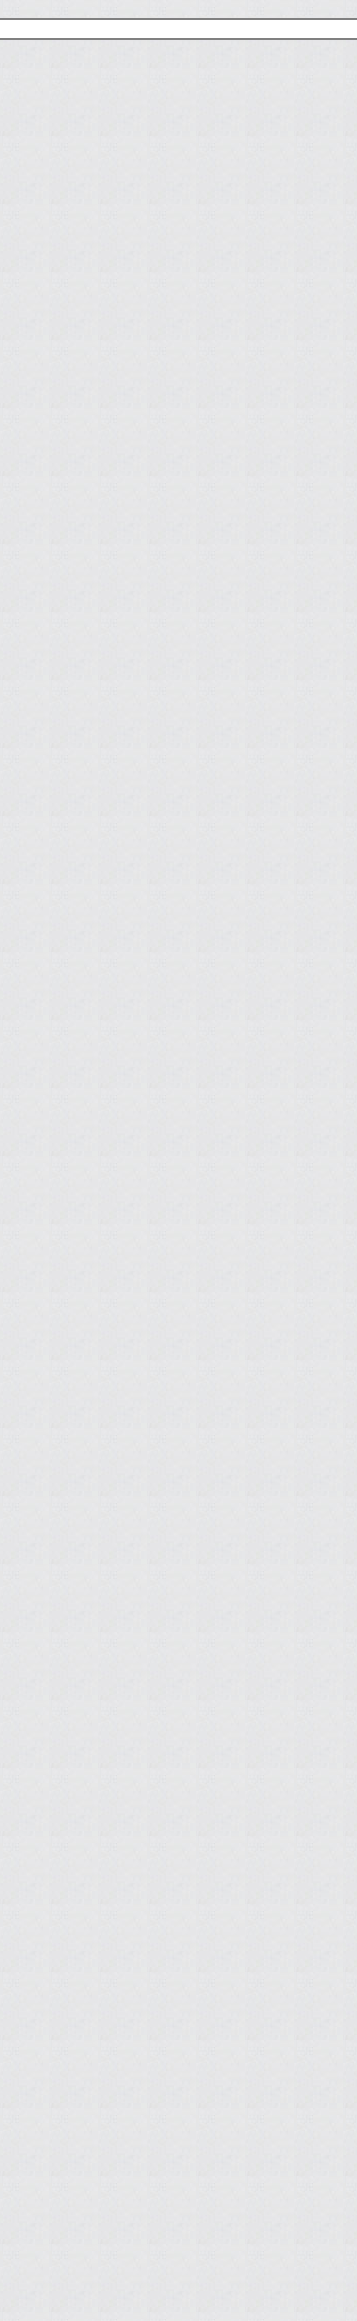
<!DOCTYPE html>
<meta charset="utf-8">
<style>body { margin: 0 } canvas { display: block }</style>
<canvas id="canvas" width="357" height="2321"></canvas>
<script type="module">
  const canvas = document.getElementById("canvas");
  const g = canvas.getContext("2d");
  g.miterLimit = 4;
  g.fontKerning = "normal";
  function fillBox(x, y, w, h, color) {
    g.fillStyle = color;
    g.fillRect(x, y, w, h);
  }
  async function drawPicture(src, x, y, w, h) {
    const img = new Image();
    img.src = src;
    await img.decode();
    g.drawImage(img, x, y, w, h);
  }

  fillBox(0, 0, 357, 2321, "#FFFFFF");
  await drawPicture("pic1.png", 0, 0, 357, 2321);
  g.beginPath();
  g.rect(-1, 19, 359, 20);
  g.fill();
  g.strokeStyle = "#808080";
  g.lineWidth = 2;
  g.stroke();
</script>
